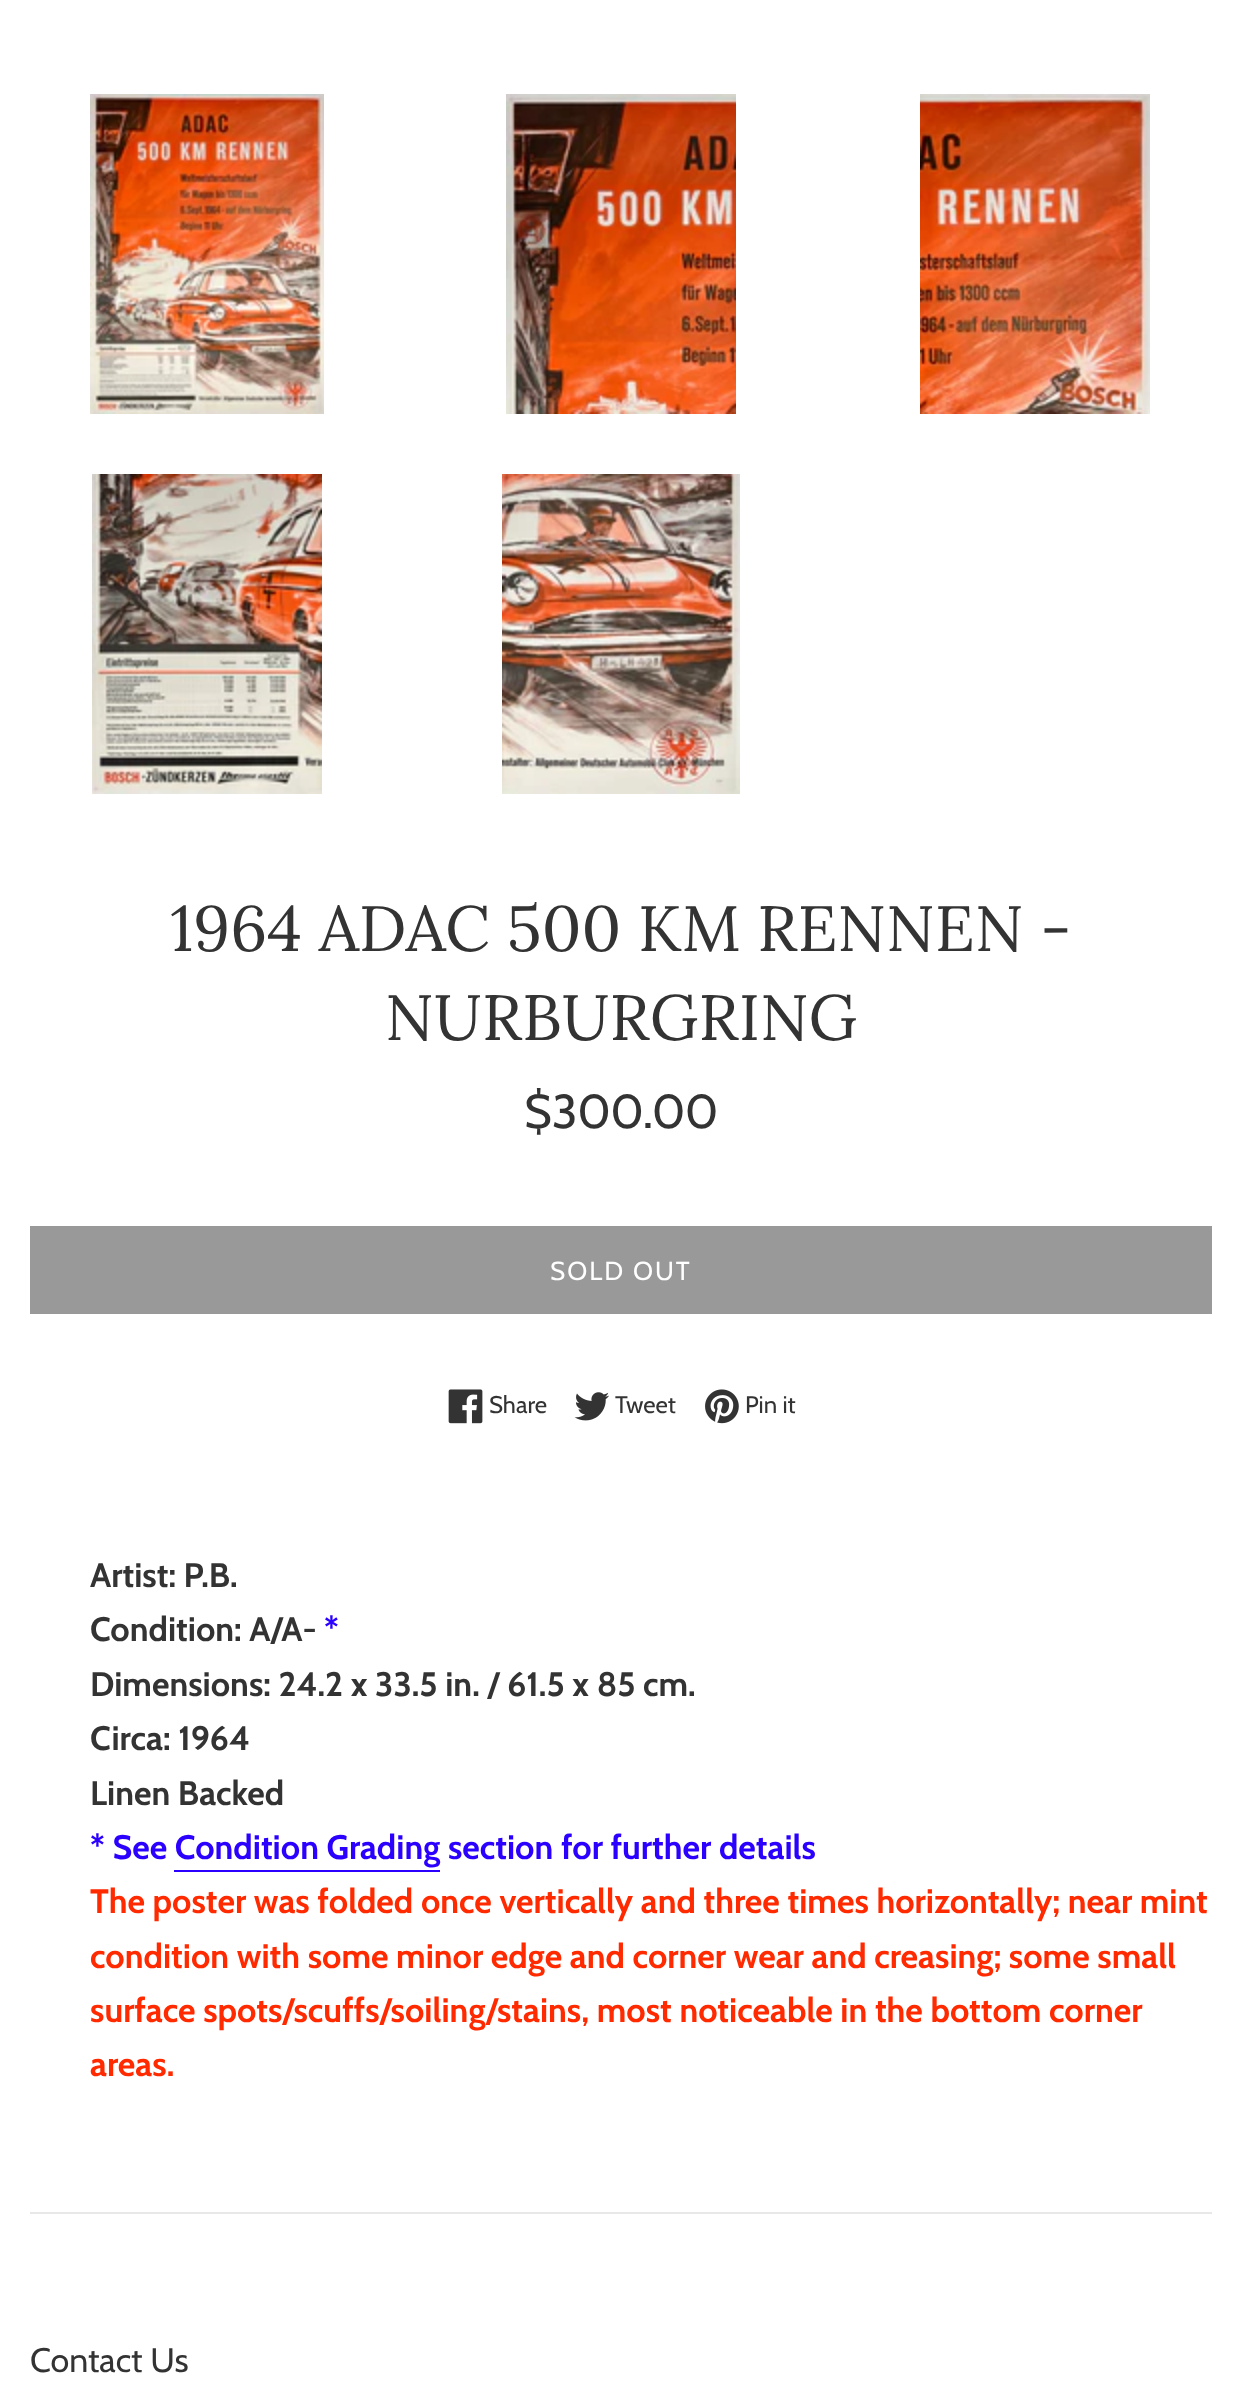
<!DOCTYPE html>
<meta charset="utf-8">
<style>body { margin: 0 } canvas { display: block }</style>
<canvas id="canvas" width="1241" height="2392"></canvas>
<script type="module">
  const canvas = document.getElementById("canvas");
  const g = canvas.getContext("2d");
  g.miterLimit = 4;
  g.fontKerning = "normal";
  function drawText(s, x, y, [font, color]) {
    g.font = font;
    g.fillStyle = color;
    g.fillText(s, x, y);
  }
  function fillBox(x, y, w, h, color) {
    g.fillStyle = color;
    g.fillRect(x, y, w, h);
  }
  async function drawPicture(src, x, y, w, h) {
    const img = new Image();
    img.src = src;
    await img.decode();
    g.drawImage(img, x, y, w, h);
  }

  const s1 = ["64px Lora", "#333333"];
  const s2 = ["47.5px Cabin", "#333333"];
  const s3 = ["26px Cabin", "#FFFFFF"];
  const s4 = ["24px Cabin", "#333333"];
  const s5 = ["bold 34px Cabin", "#333333"];
  const s6 = ["bold 34px Cabin", "#2B00FF"];
  const s7 = ["bold 34px Cabin", "#FF2A00"];
  const s8 = ["34px Cabin", "#333333"];

  fillBox(0, 0, 1241, 2392, "#FFFFFF");
  await drawPicture("pic1.png", 90, 94, 234, 320);
  await drawPicture("pic2.png", 506, 94, 230, 320);
  await drawPicture("pic3.png", 920, 94, 230, 320);
  await drawPicture("pic4.png", 92, 474, 230, 320);
  await drawPicture("pic5.png", 502, 474, 238, 320);
  drawText("1964 ADAC 500 KM RENNEN -", 170, 951, s1);
  drawText("NURBURGRING", 385, 1040, s1);
  drawText("$300.00", 524, 1128, s2);
  fillBox(30, 1226, 1182, 88, "#999999");
  g.letterSpacing = "2px";
  drawText("SOLD OUT", 550, 1280, s3);
  await drawPicture("pic6.png", 448, 1389, 35, 35);
  g.letterSpacing = "0px";
  drawText("Share", 489, 1413, s4);
  await drawPicture("pic7.png", 574, 1392, 35, 29);
  drawText("Tweet", 615, 1413, s4);
  await drawPicture("pic8.png", 705, 1389, 34, 35);
  drawText("Pin it", 745, 1413, s4);
  drawText("Artist: P.B.", 90, 1587, s5);
  drawText("Condition: A/A-", 90, 1641, s5);
  drawText("*", 324, 1641, s6);
  drawText("Dimensions: 24.2 x 33.5 in. / 61.5 x 85 cm.", 90, 1696, s5);
  drawText("Circa: 1964", 90, 1750, s5);
  drawText("Linen Backed", 90, 1805, s5);
  drawText("* See Condition Grading section for further details", 90, 1859, s6);
  fillBox(174, 1870, 266, 2, "#2B00FF");
  drawText("The poster was folded once vertically and three times horizontally; near mint", 90, 1913, s7);
  drawText("condition with some minor edge and corner wear and creasing; some small", 90, 1968, s7);
  drawText("surface spots/scuffs/soiling/stains, most noticeable in the bottom corner", 90, 2022, s7);
  drawText("areas.", 90, 2076, s7);
  fillBox(30, 2212, 1182, 2, "#E8E8E8");
  drawText("Contact Us", 30, 2372, s8);
</script>
